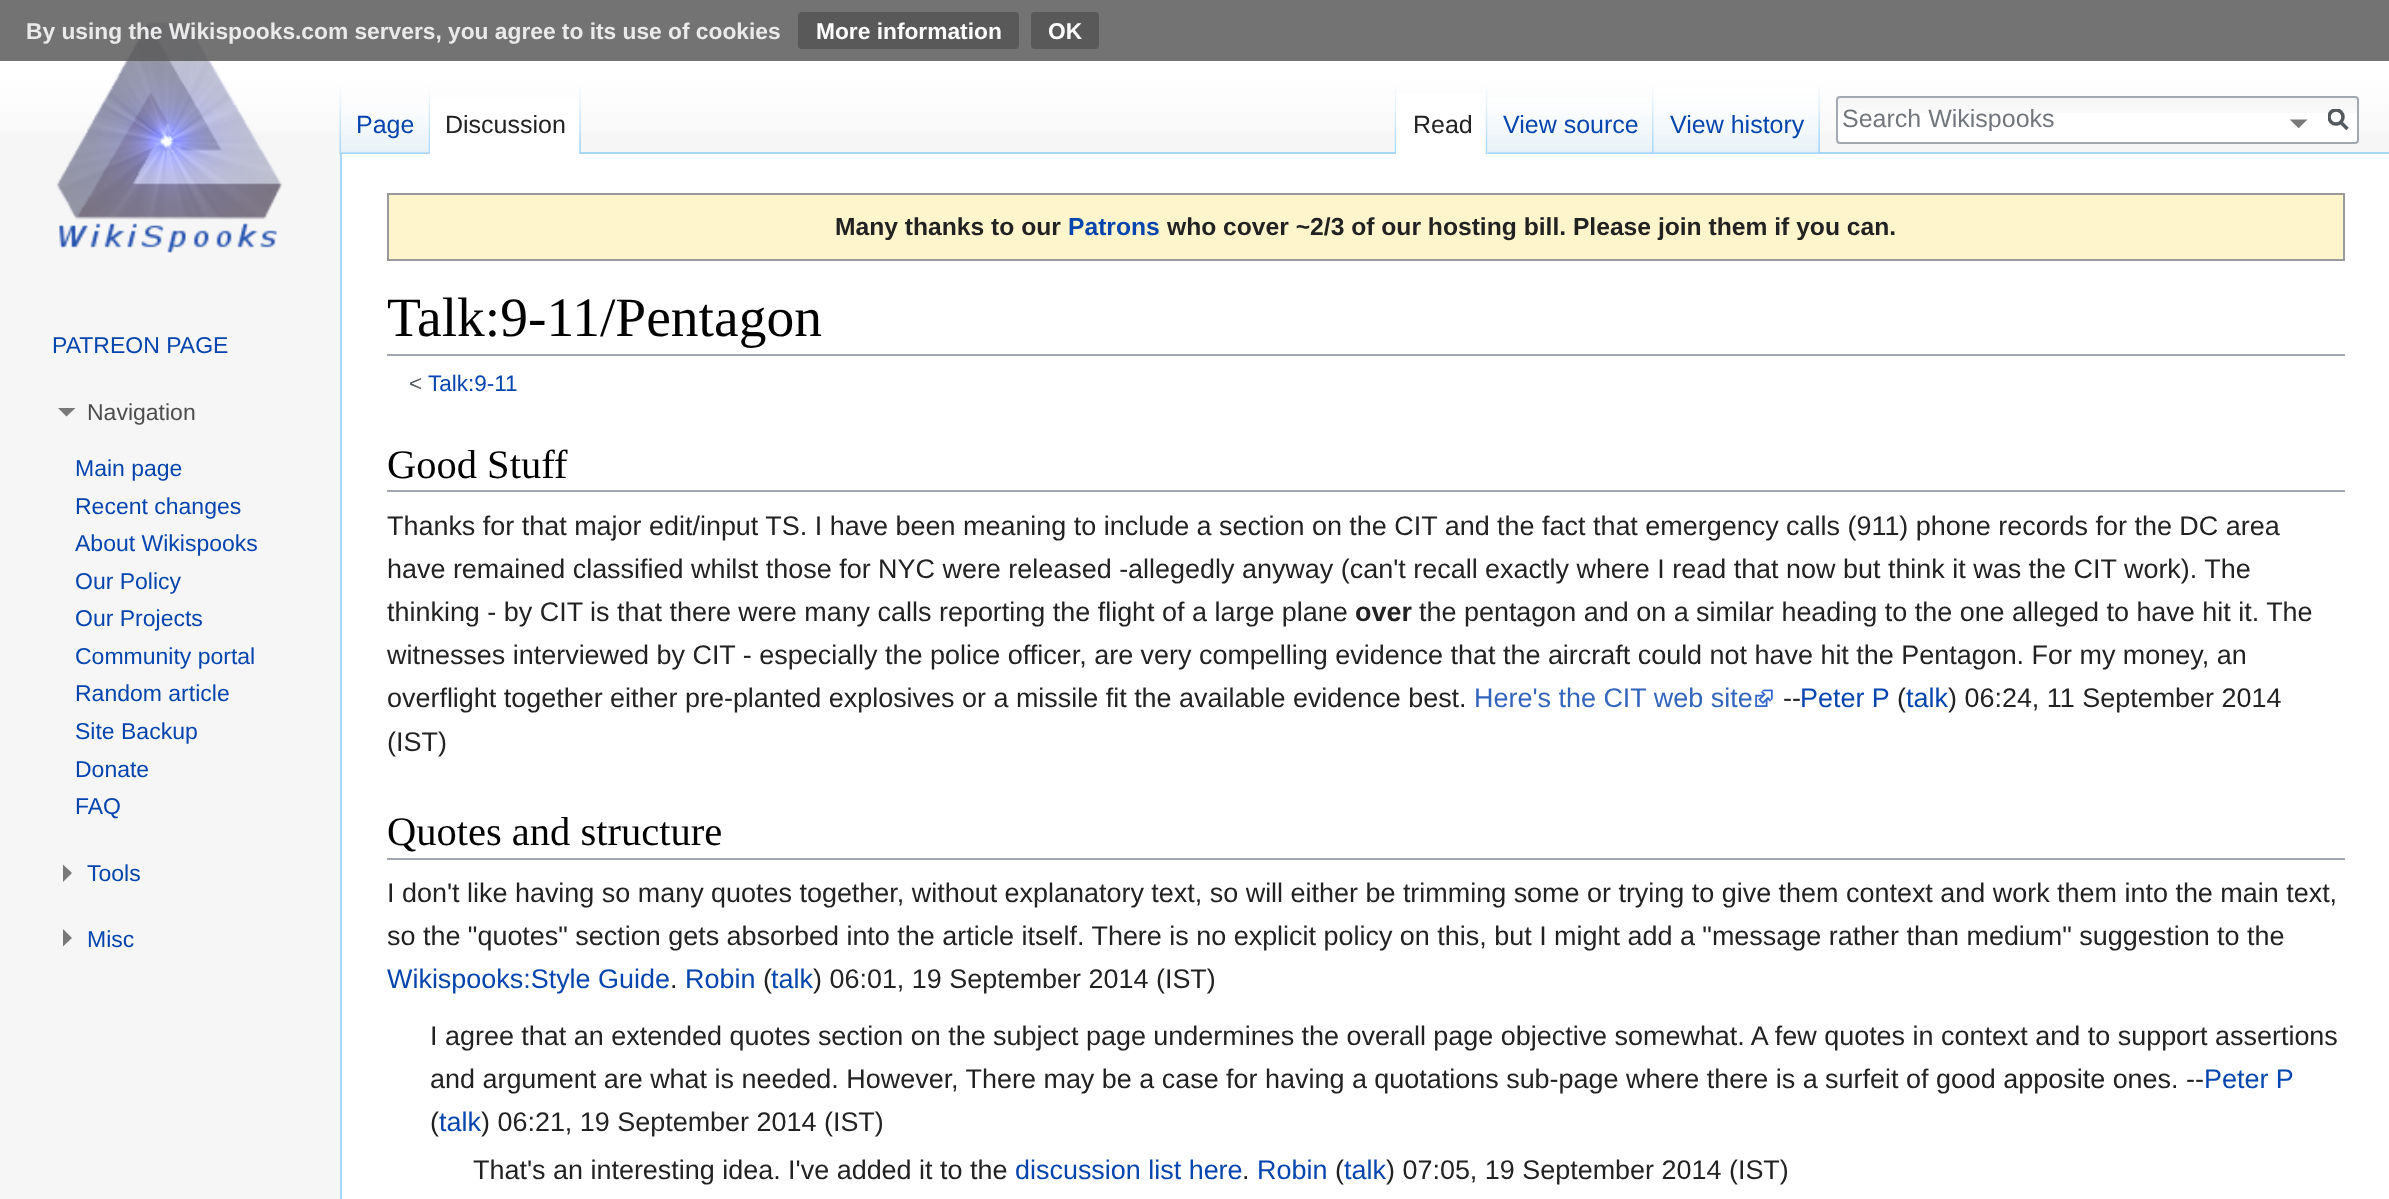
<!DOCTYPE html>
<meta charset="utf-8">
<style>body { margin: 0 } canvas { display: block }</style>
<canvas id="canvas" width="2389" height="1199"></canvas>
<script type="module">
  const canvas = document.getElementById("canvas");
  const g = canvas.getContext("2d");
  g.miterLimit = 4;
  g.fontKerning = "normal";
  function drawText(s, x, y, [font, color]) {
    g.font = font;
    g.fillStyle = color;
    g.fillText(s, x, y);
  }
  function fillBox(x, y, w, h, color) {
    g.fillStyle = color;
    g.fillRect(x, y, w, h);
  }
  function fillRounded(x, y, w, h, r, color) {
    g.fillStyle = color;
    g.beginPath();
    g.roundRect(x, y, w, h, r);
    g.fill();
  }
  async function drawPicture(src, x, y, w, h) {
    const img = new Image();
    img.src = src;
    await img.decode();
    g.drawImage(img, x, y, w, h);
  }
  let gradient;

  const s1 = ["bold 22.75px Liberation Sans", "#EAEAEA"];
  const s2 = ["bold 22.75px Liberation Sans", "#FFFFFF"];
  const s3 = ["25px Liberation Sans", "#0645AD"];
  const s4 = ["25px Liberation Sans", "#222222"];
  const s5 = ["25px Liberation Sans", "#72777D"];
  const s6 = ["23px Liberation Sans", "#0645AD"];
  const s7 = ["23px Liberation Sans", "#4D4D4D"];
  const s8 = ["bold 24.65px Liberation Sans", "#222222"];
  const s9 = ["bold 24.65px Liberation Sans", "#0645AD"];
  const s10 = ["55.5px Liberation Serif", "#000000"];
  const s11 = ["22.5px Liberation Sans", "#54595D"];
  const s12 = ["22.5px Liberation Sans", "#0645AD"];
  const s13 = ["40.5px Liberation Serif", "#000000"];
  const s14 = ["26.95px Liberation Sans", "#222222"];
  const s15 = ["bold 26.95px Liberation Sans", "#222222"];
  const s16 = ["26.95px Liberation Sans", "#3366BB"];
  const s17 = ["26.95px Liberation Sans", "#0645AD"];

  fillBox(0, 0, 2389, 1199, "#F6F6F6");
  gradient = g.createLinearGradient(1195, 0, 1195, 154);
  gradient.addColorStop(0.5, "#FFFFFF");
  gradient.addColorStop(1, "#F6F6F6");
  g.fillStyle = gradient;
  g.fillRect(0, 0, 2389, 133);
  await drawPicture("pic13.png", 56, 22, 227, 231);
  fillBox(0, 0, 2389, 61, "rgba(90, 90, 90, 0.85)");
  drawText("By using the Wikispooks.com servers, you agree to its use of cookies", 26, 39, s1);
  fillRounded(798, 12, 221, 37, 4, "#595959");
  drawText("More information", 816, 39, s2);
  fillRounded(1031, 12, 68, 37, 4, "#595959");
  drawText("OK", 1048, 39, s2);
  fillBox(340, 152, 2049, 2, "#A7D7F9");
  fillBox(340, 152, 2, 1047, "#A7D7F9");
  await drawPicture("pic1.png", 339, 87, 3, 67);
  await drawPicture("pic2.png", 341, 107, 88, 46);
  await drawPicture("pic3.png", 428, 87, 2, 66);
  drawText("Page", 356, 133, s3);
  fillBox(430, 98, 150, 56, "#FFFFFF");
  await drawPicture("pic4.png", 579, 87, 2, 67);
  drawText("Discussion", 445, 133, s4);
  await drawPicture("pic5.png", 1394, 87, 3, 65);
  fillBox(1396, 94, 92, 60, "#FFFFFF");
  await drawPicture("pic6.png", 1485, 87, 3, 67);
  drawText("Read", 1413, 133, s4);
  await drawPicture("pic7.png", 1487, 99, 167, 55);
  await drawPicture("pic8.png", 1652, 87, 2, 66);
  drawText("View source", 1503, 133, s3);
  await drawPicture("pic9.png", 1653, 87, 166, 66);
  await drawPicture("pic10.png", 1818, 87, 2, 66);
  drawText("View history", 1670, 133, s3);
  fillRounded(1836, 96, 523, 48, 4, "#FFFFFF");
  await drawPicture("pic11.png", 1836, 98, 523, 15);
  g.beginPath();
  g.roundRect(1837, 97, 521, 46, 3);
  g.strokeStyle = "#A2A9B1";
  g.lineWidth = 2;
  g.stroke();
  g.save();
  g.beginPath();
  g.rect(1841, 103, 450, 28);
  g.clip();
  drawText("Search Wikispooks", 1842, 127, s5);
  g.restore();
  g.beginPath();
  g.moveTo(2347.5, 129);
  g.lineTo(2340.5, 122);
  g.strokeStyle = "#54595D";
  g.lineWidth = 3.5;
  g.stroke();
  g.save();
  g.beginPath();
  g.rect(2328, 109, 21, 22);
  g.clip();
  g.beginPath();
  g.arc(2336, 117, 7, 0, Math.PI * 2);
  g.stroke();
  g.restore();
  await drawPicture("pic12.png", 2290, 119, 18, 10);
  drawText("PATREON PAGE", 52, 353, s6);
  g.fillStyle = "#797979";
  g.beginPath();
  g.moveTo(75.5, 408);
  g.lineTo(66.5, 416.5);
  g.lineTo(58, 408);
  g.closePath();
  g.fill();
  drawText("Navigation", 87, 420, s7);
  drawText("Main page", 75, 476, s6);
  drawText("Recent changes", 75, 514, s6);
  drawText("About Wikispooks", 75, 551, s6);
  drawText("Our Policy", 75, 589, s6);
  drawText("Our Projects", 75, 626, s6);
  drawText("Community portal", 75, 664, s6);
  drawText("Random article", 75, 701, s6);
  drawText("Site Backup", 75, 739, s6);
  drawText("Donate", 75, 777, s6);
  drawText("FAQ", 75, 814, s6);
  g.fillStyle = "#797979";
  g.beginPath();
  g.moveTo(63, 864.5);
  g.lineTo(72, 873);
  g.lineTo(63, 882);
  g.closePath();
  g.fill();
  drawText("Tools", 87, 881, s6);
  g.fillStyle = "#797979";
  g.beginPath();
  g.moveTo(63, 929);
  g.lineTo(72, 938);
  g.lineTo(63, 946.5);
  g.closePath();
  g.fill();
  drawText("Misc", 87, 947, s6);
  fillBox(342, 154, 2047, 1045, "#FFFFFF");
  g.fillStyle = "#FFF5CC";
  g.beginPath();
  g.rect(388, 194, 1956, 66);
  g.fill();
  g.strokeStyle = "#9A9A9A";
  g.lineWidth = 2;
  g.stroke();
  drawText("Many thanks to our", 835, 235, s8);
  drawText("Patrons", 1068, 235, s9);
  drawText("who cover ~2/3 of our hosting bill. Please join them if you can.", 1167, 235, s8);
  fillBox(387, 354, 1958, 2, "#A2A9B1");
  drawText("Talk:9-11/Pentagon", 387, 336, s10);
  drawText("<", 409, 391, s11);
  drawText("Talk:9-11", 428, 391, s12);
  fillBox(387, 490, 1958, 2, "#A2A9B1");
  drawText("Good Stuff", 387, 478, s13);
  drawText("Thanks for that major edit/input TS. I have been meaning to include a section on the CIT and the fact that emergency calls (911) phone records for the DC area", 387, 535, s14);
  drawText("have remained classified whilst those for NYC were released -allegedly anyway (can't recall exactly where I read that now but think it was the CIT work). The", 387, 578, s14);
  drawText("thinking - by CIT is that there were many calls reporting the flight of a large plane", 387, 621, s14);
  drawText("over", 1355, 621, s15);
  drawText("the pentagon and on a similar heading to the one alleged to have hit it. The", 1419, 621, s14);
  drawText("witnesses interviewed by CIT - especially the police officer, are very compelling evidence that the aircraft could not have hit the Pentagon. For my money, an", 387, 664, s14);
  drawText("overflight together either pre-planted explosives or a missile fit the available evidence best.", 387, 707, s14);
  drawText("Here's the CIT web site", 1474, 707, s16);
  await drawPicture("pic14.png", 1755, 689, 18, 19);
  drawText("--", 1783, 707, s14);
  drawText("Peter P", 1800, 707, s17);
  drawText("(", 1897, 707, s14);
  drawText("talk", 1906, 707, s17);
  drawText(") 06:24, 11 September 2014", 1948, 707, s14);
  drawText("(IST)", 387, 751, s14);
  fillBox(387, 858, 1958, 2, "#A2A9B1");
  drawText("Quotes and structure", 387, 845, s13);
  drawText("I don't like having so many quotes together, without explanatory text, so will either be trimming some or trying to give them context and work them into the main text,", 387, 902, s14);
  drawText("so the \"quotes\" section gets absorbed into the article itself. There is no explicit policy on this, but I might add a \"message rather than medium\" suggestion to the", 387, 945, s14);
  drawText("Wikispooks:Style Guide", 387, 988, s17);
  drawText(".", 670, 988, s14);
  drawText("Robin", 685, 988, s17);
  drawText("(", 763, 988, s14);
  drawText("talk", 771, 988, s17);
  drawText(") 06:01, 19 September 2014 (IST)", 813, 988, s14);
  drawText("I agree that an extended quotes section on the subject page undermines the overall page objective somewhat. A few quotes in context and to support assertions", 430, 1045, s14);
  drawText("and argument are what is needed. However, There may be a case for having a quotations sub-page where there is a surfeit of good apposite ones. --", 430, 1088, s14);
  drawText("Peter P", 2204, 1088, s17);
  drawText("(", 430, 1131, s14);
  drawText("talk", 439, 1131, s17);
  drawText(") 06:21, 19 September 2014 (IST)", 481, 1131, s14);
  drawText("That's an interesting idea. I've added it to the", 473, 1179, s14);
  drawText("discussion list here", 1015, 1179, s17);
  drawText(".", 1242, 1179, s14);
  drawText("Robin", 1257, 1179, s17);
  drawText("(", 1335, 1179, s14);
  drawText("talk", 1344, 1179, s17);
  drawText(") 07:05, 19 September 2014 (IST)", 1386, 1179, s14);
</script>
